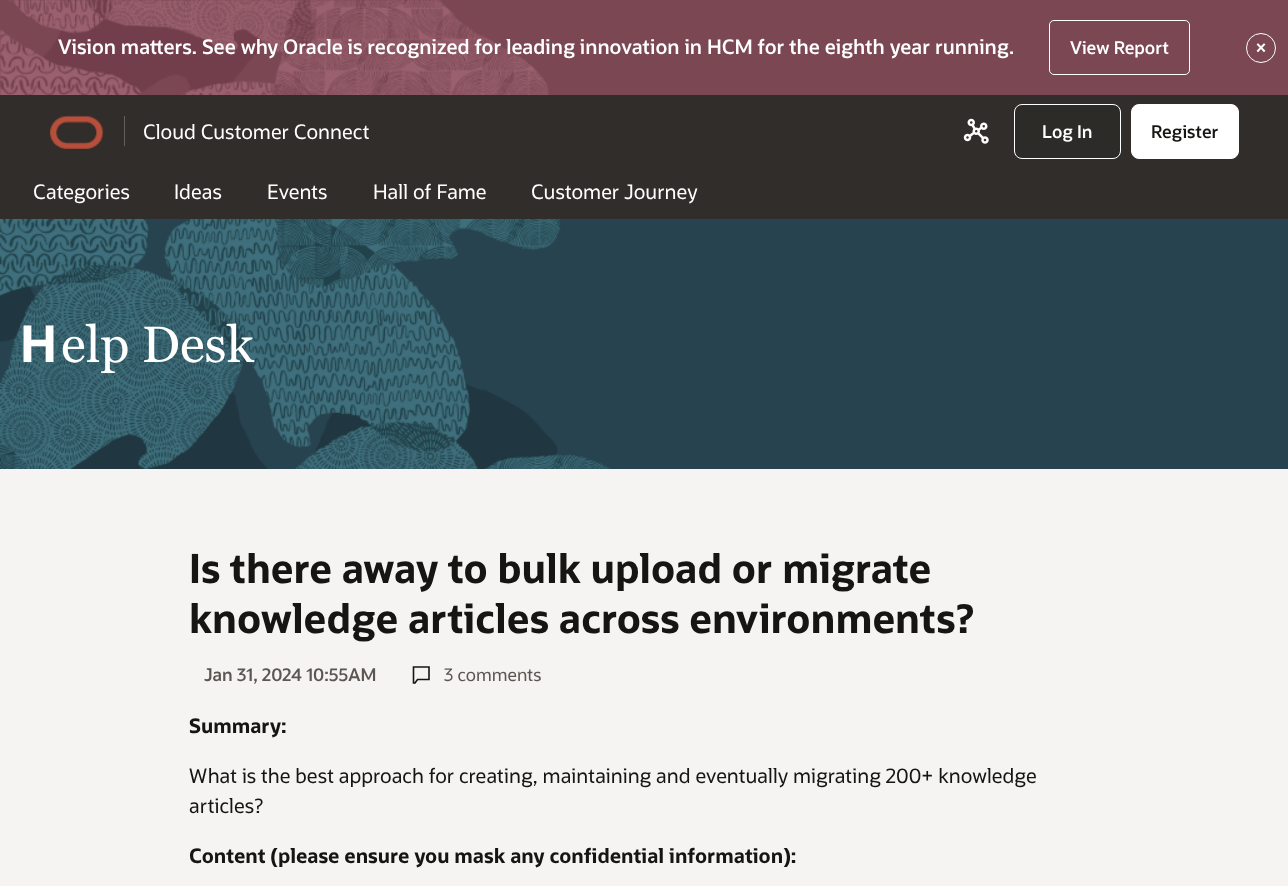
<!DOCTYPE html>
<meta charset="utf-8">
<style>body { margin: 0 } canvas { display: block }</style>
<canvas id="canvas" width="1288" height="886"></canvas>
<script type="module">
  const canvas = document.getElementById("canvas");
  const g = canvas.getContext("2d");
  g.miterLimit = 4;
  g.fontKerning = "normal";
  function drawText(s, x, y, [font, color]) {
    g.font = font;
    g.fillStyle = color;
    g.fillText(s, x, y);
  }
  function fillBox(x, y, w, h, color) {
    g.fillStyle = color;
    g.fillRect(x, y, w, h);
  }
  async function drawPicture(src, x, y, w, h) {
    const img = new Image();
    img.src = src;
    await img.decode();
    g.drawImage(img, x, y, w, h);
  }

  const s1 = ["600 20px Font", "#FFFFFF"];
  const s2 = ["600 17.5px Font", "#FFFFFF"];
  const s3 = ["20px Font", "#FFFFFF"];
  const s4 = ["600 17.5px Font", "#161513"];
  const s5 = ["bold 51px Noto Sans", "#FFFFFF"];
  const s6 = ["51px Georgia", "#FFFFFF"];
  const s7 = ["bold 40px Font", "#161513"];
  const s8 = ["600 17.5px Font", "#5B5652"];
  const s9 = ["17.5px Font", "#5B5652"];
  const s10 = ["bold 20px Font", "#161513"];
  const s11 = ["20px Font", "#161513"];

  fillBox(0, 0, 1288, 886, "#F5F4F2");
  fillBox(0, 0, 1288, 95, "#7A4753");
  await drawPicture("pic1.png", 0, 0, 549, 95);
  drawText("Vision matters. See why Oracle is recognized for leading innovation in HCM for the eighth year running.", 58, 54, s1);
  g.beginPath();
  g.roundRect(1049.5, 20.5, 140, 54, 4.5);
  g.strokeStyle = "#FFFFFF";
  g.stroke();
  drawText("View Report", 1070, 54, s2);
  g.beginPath();
  g.arc(1261, 48, 14.5, 0, Math.PI * 2);
  g.stroke();
  drawText("×", 1255, 55, s1);
  fillBox(0, 95, 1288, 74, "#302D2A");
  await drawPicture("pic2.png", 50, 115, 54, 34);
  fillBox(124, 116, 1, 30, "#665F5B");
  drawText("Cloud Customer Connect", 143, 139, s3);
  await drawPicture("pic3.png", 963, 118, 26, 26);
  g.fillStyle = "#2D2B28";
  g.beginPath();
  g.roundRect(1014.5, 104.5, 106, 54, 7.5);
  g.fill();
  g.stroke();
  drawText("Log In", 1042, 138, s2);
  g.beginPath();
  g.roundRect(1131.5, 104.5, 107, 54, 7.5);
  g.fill();
  g.stroke();
  drawText("Register", 1151, 138, s4);
  fillBox(0, 169, 1288, 50, "#312D2A");
  drawText("Categories", 33, 199, s3);
  drawText("Ideas", 174, 199, s3);
  drawText("Events", 267, 199, s3);
  drawText("Hall of Fame", 373, 199, s3);
  drawText("Customer Journey", 531, 199, s3);
  fillBox(610, 219, 678, 250, "#284350");
  await drawPicture("pic4.png", 0, 219, 610, 250);
  drawText("H", 19, 362, s5);
  drawText("elp Desk", 61, 362, s6);
  drawText("Is there away to bulk upload or migrate", 189, 583, s7);
  drawText("knowledge articles across environments?", 189, 633, s7);
  drawText("Jan 31, 2024 10:55AM", 204, 681, s8);
  g.beginPath();
  g.moveTo(429, 667);
  g.lineTo(413.5, 667);
  g.lineTo(413.5, 683);
  g.lineTo(415, 683);
  g.lineTo(417.5, 679.5);
  g.lineTo(429, 679.5);
  g.closePath();
  g.strokeStyle = "#161513";
  g.lineWidth = 1.6;
  g.stroke();
  drawText("3 comments", 444, 681, s9);
  drawText("Summary:", 189, 733, s10);
  drawText("What is the best approach for creating, maintaining and eventually migrating 200+ knowledge", 189, 783, s11);
  drawText("articles?", 189, 813, s11);
  drawText("Content (please ensure you mask any confidential information):", 189, 863, s10);
</script>
